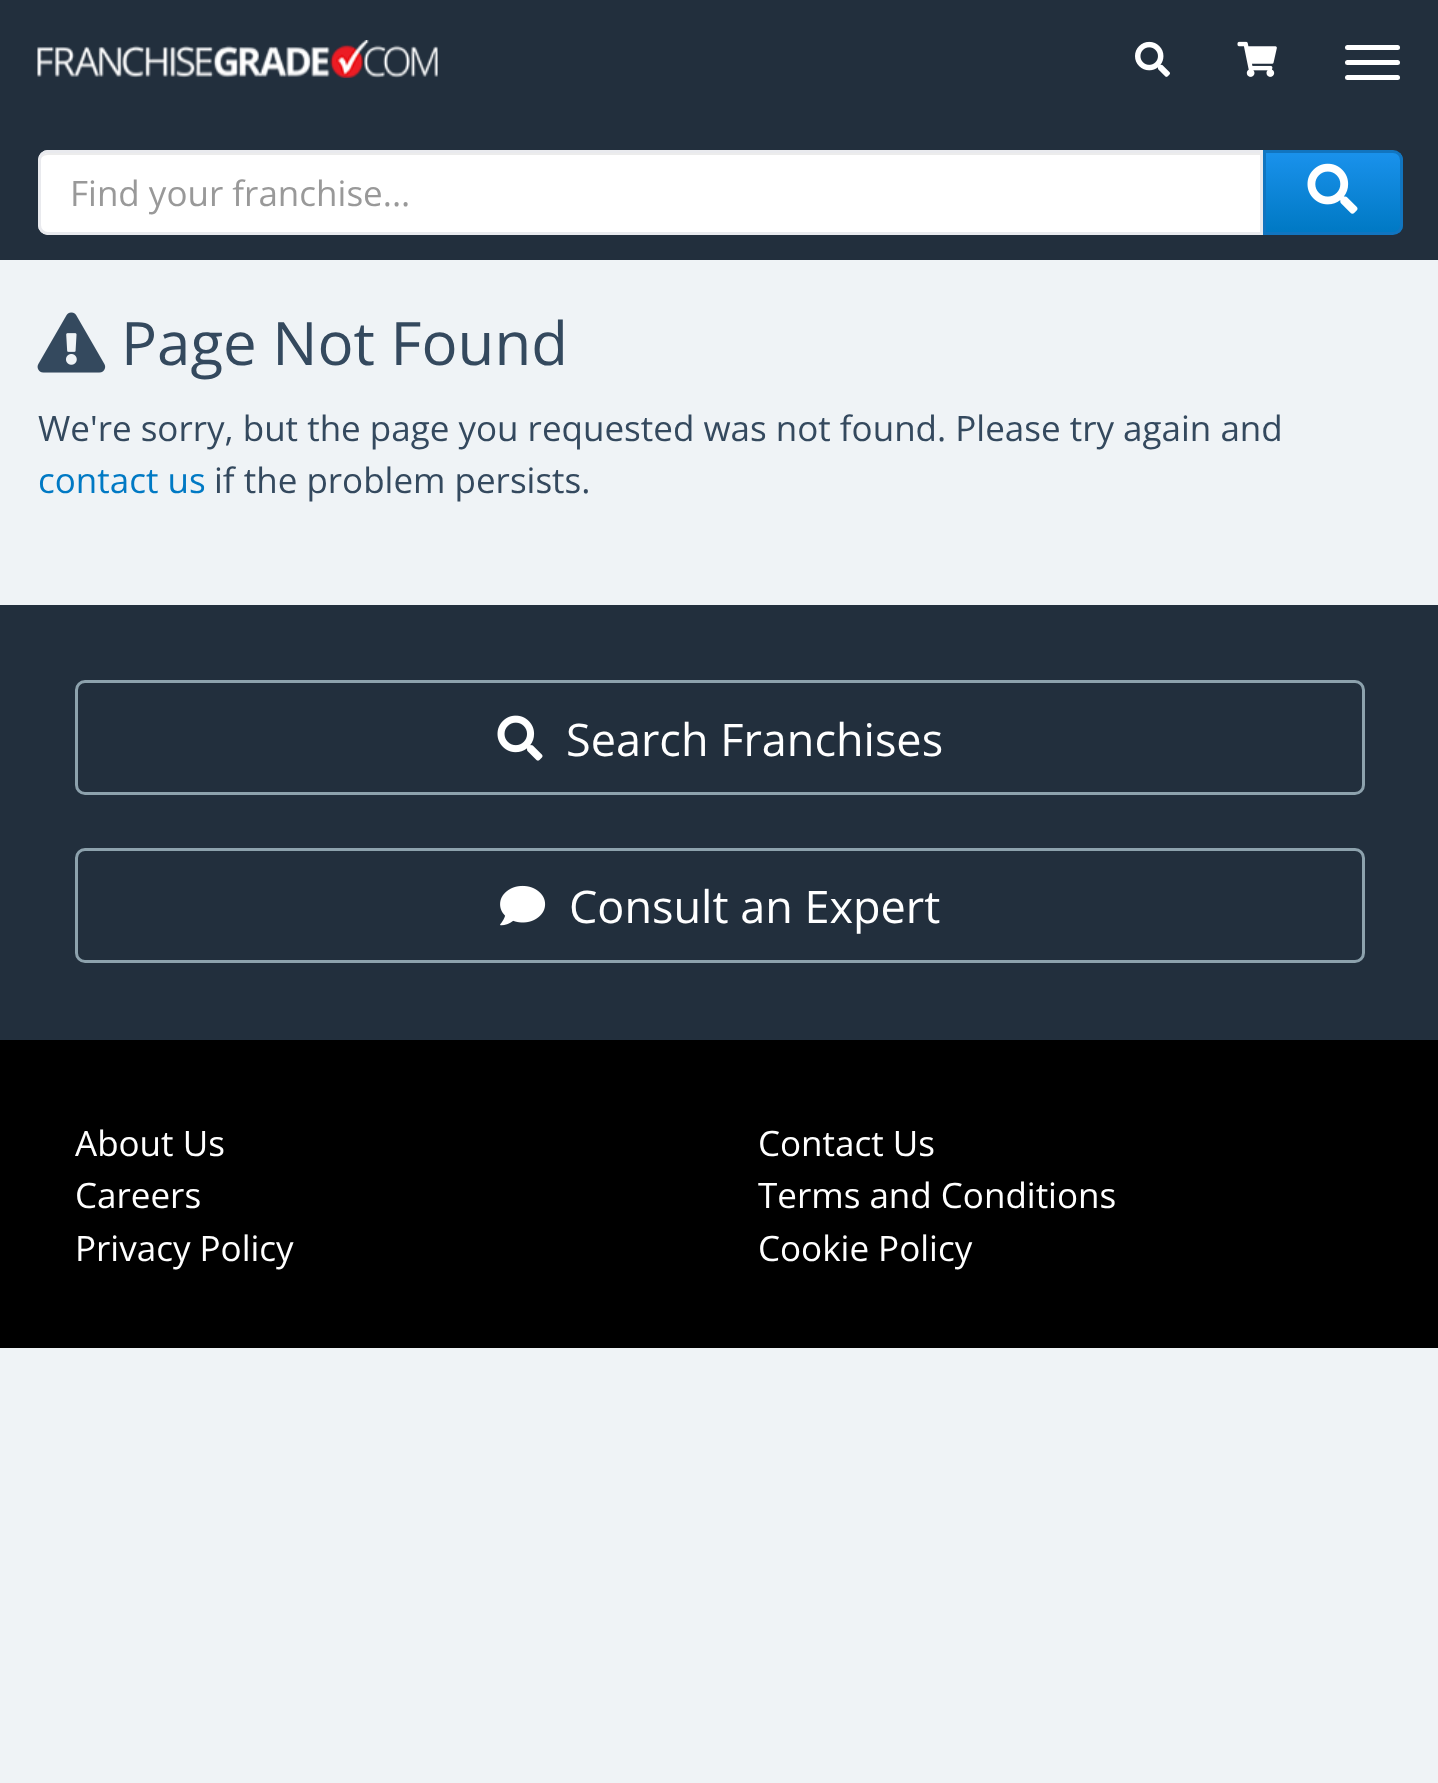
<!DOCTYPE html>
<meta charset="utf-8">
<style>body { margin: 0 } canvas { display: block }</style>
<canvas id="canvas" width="1438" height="1783"></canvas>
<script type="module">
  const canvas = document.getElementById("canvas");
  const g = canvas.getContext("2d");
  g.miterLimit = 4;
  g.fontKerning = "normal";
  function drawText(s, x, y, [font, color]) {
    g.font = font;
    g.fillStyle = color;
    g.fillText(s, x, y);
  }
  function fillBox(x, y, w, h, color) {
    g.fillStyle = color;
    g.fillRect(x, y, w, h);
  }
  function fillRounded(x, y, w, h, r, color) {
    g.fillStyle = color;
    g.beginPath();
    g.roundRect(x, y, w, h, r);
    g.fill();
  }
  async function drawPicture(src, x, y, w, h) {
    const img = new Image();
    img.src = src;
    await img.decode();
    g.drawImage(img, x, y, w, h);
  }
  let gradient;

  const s1 = ["35px Open Sans", "#999999"];
  const s2 = ["60px Open Sans", "#34495E"];
  const s3 = ["35px Open Sans", "#34495E"];
  const s4 = ["35px Open Sans", "#0079C4"];
  const s5 = ["45px Open Sans", "#FFFFFF"];
  const s6 = ["35px Open Sans", "#FFFFFF"];

  fillBox(0, 0, 1438, 1783, "#EFF3F6");
  fillBox(0, 0, 1438, 260, "#222F3D");
  await drawPicture("pic1.png", 37, 40, 401, 38);
  await drawPicture("pic2.png", 1135, 41, 35, 36);
  await drawPicture("pic3.png", 1237, 41, 40, 36);
  fillRounded(1345, 45, 55, 5, 2.5, "#FFFFFF");
  fillRounded(1345, 60, 55, 5, 2.5, "#FFFFFF");
  fillRounded(1345, 75, 55, 5, 2.5, "#FFFFFF");
  g.beginPath();
  g.roundRect(38, 150, 1225, 85, [10, 0, 0, 10]);
  g.fill();
  g.fillStyle = "#ECECEC";
  g.beginPath();
  g.moveTo(48, 155);
  g.lineTo(1260, 155);
  g.lineTo(1260, 153);
  g.lineTo(48, 153);
  g.bezierCurveTo(44, 153, 40, 157, 40, 161);
  g.lineTo(40, 162);
  g.bezierCurveTo(40, 158, 43, 155, 48, 155);
  g.closePath();
  g.fill();
  g.beginPath();
  g.roundRect(39.5, 151.5, 1222, 82, [8.5, 0, 0, 8.5]);
  g.strokeStyle = "#E9EAEE";
  g.lineWidth = 3;
  g.stroke();
  drawText("Find your franchise...", 70, 206, s1);
  g.save();
  g.beginPath();
  g.roundRect(1263, 150, 140, 85, [0, 10, 10, 0]);
  g.clip();
  gradient = g.createLinearGradient(1333, 153, 1333, 233);
  gradient.addColorStop(0.02, "#1991EB");
  gradient.addColorStop(0.98, "#0079C4");
  g.fillStyle = gradient;
  g.fillRect(1266, 153, 137, 80);
  g.restore();
  g.beginPath();
  g.roundRect(1264.5, 151.5, 137, 82, [0, 8.5, 8.5, 0]);
  g.strokeStyle = "#1175C0";
  g.stroke();
  await drawPicture("pic4.png", 1307, 163, 51, 51);
  await drawPicture("pic5.png", 37, 312, 69, 61);
  drawText("Page Not Found", 121, 365, s2);
  drawText("We're sorry, but the page you requested was not found. Please try again and", 38, 441, s3);
  drawText("contact us", 38, 493, s4);
  drawText("if the problem persists.", 214, 493, s3);
  fillBox(0, 605, 1438, 435, "#222F3D");
  g.beginPath();
  g.roundRect(76.5, 681.5, 1287, 112, 8.5);
  g.strokeStyle = "#8DA2AD";
  g.stroke();
  await drawPicture("pic6.png", 497, 715, 46, 46);
  drawText("Search Franchises", 566, 756, s5);
  g.beginPath();
  g.roundRect(76.5, 849.5, 1287, 112, 8.5);
  g.stroke();
  await drawPicture("pic7.png", 500, 885, 46, 41);
  drawText("Consult an Expert", 569, 923, s5);
  fillBox(0, 1040, 1438, 308, "#000000");
  drawText("About Us", 75, 1156, s6);
  drawText("Contact Us", 758, 1156, s6);
  drawText("Careers", 75, 1208, s6);
  drawText("Terms and Conditions", 758, 1208, s6);
  drawText("Privacy Policy", 75, 1261, s6);
  drawText("Cookie Policy", 758, 1261, s6);
</script>
